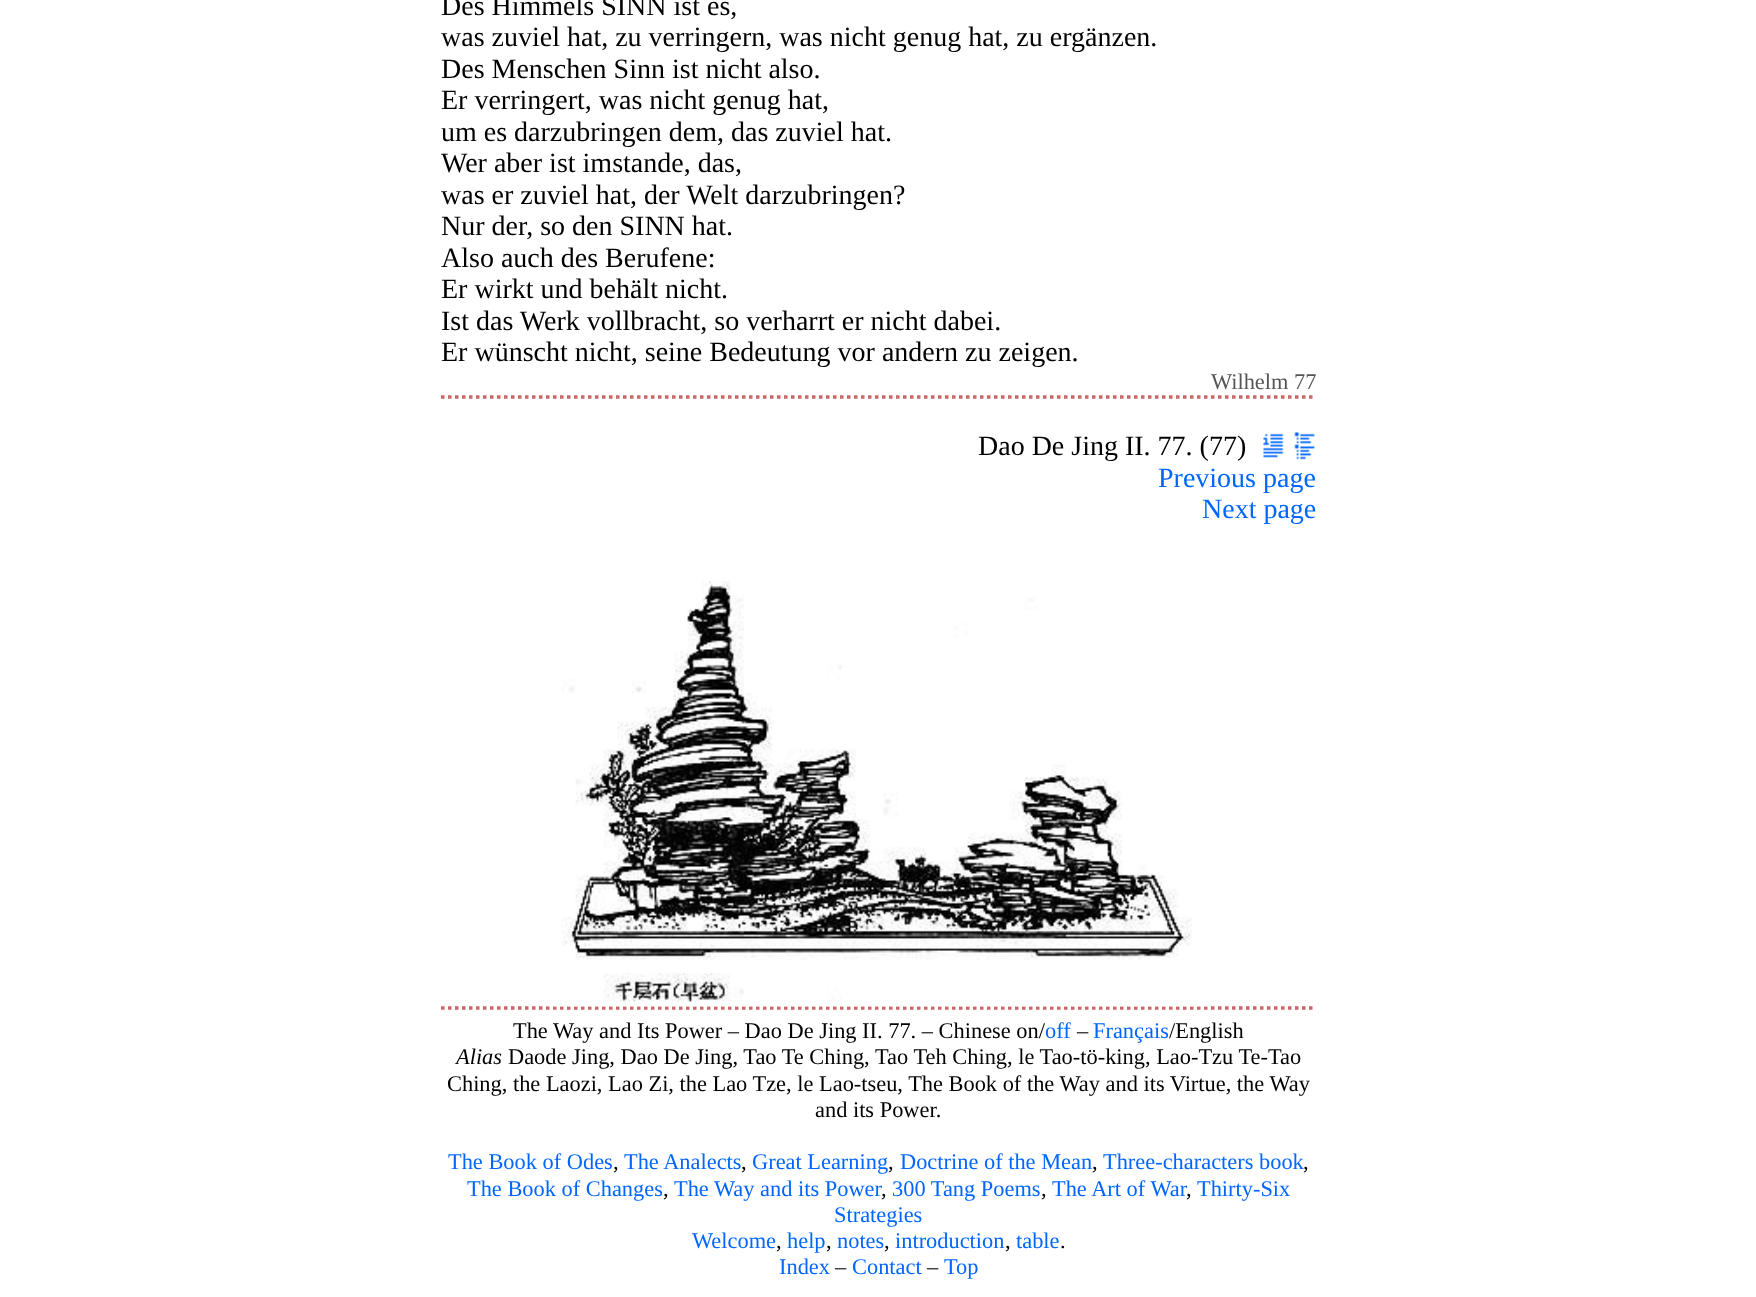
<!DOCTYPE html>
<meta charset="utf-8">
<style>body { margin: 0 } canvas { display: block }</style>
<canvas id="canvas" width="1756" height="1297"></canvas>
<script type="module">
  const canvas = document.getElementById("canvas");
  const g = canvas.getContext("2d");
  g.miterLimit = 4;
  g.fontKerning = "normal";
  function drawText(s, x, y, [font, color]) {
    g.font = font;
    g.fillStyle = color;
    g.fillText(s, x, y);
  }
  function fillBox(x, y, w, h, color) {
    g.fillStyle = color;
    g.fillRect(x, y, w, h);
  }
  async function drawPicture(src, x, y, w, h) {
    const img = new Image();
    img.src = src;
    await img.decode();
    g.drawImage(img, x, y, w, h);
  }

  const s1 = ["28px Liberation Serif", "#000000"];
  const s2 = ["22.4px Liberation Serif", "#555555"];
  const s3 = ["28px Liberation Serif", "#0066FF"];
  const s4 = ["22.4px Liberation Serif", "#000000"];
  const s5 = ["22.4px Liberation Serif", "#0066FF"];
  const s6 = ["italic 22.4px Liberation Serif", "#000000"];

  fillBox(0, 0, 1756, 1297, "#FFFFFF");
  drawText("Des Himmels SINN ist es,", 441, 15, s1);
  drawText("was zuviel hat, zu verringern, was nicht genug hat, zu ergänzen.", 441, 46, s1);
  drawText("Des Menschen Sinn ist nicht also.", 441, 78, s1);
  drawText("Er verringert, was nicht genug hat,", 441, 109, s1);
  drawText("um es darzubringen dem, das zuviel hat.", 441, 141, s1);
  drawText("Wer aber ist imstande, das,", 441, 172, s1);
  drawText("was er zuviel hat, der Welt darzubringen?", 441, 204, s1);
  drawText("Nur der, so den SINN hat.", 441, 235, s1);
  drawText("Also auch des Berufene:", 441, 267, s1);
  drawText("Er wirkt und behält nicht.", 441, 298, s1);
  drawText("Ist das Werk vollbracht, so verharrt er nicht dabei.", 441, 330, s1);
  drawText("Er wünscht nicht, seine Bedeutung vor andern zu zeigen.", 441, 361, s1);
  g.beginPath();
  g.moveTo(441, 397);
  g.lineTo(1316, 397);
  g.strokeStyle = "#CC6666";
  g.lineWidth = 3.5;
  g.setLineDash([3.5, 3.5]);
  g.stroke();
  drawText("Wilhelm 77", 1211, 389, s2);
  drawText("Dao De Jing II. 77. (77)", 978, 455, s1);
  await drawPicture("pic1.png", 1263, 433, 21, 25);
  await drawPicture("pic2.png", 1294, 432, 21, 28);
  drawText("Previous page", 1158, 487, s3);
  drawText("Next page", 1202, 518, s3);
  g.beginPath();
  g.moveTo(441, 1008);
  g.lineTo(1316, 1008);
  g.stroke();
  await drawPicture("pic3.png", 547, 581, 661, 426);
  drawText("The Way and Its Power – Dao De Jing II. 77. – Chinese on/", 513, 1038, s4);
  drawText("off", 1045, 1038, s5);
  drawText("–", 1077, 1038, s4);
  drawText("Français", 1093, 1038, s5);
  drawText("/English", 1169, 1038, s4);
  drawText("Alias", 456, 1064, s6);
  drawText("Daode Jing, Dao De Jing, Tao Te Ching,", 508, 1064, s4);
  drawText("Tao Teh Ching, le Tao-tö-king, Lao-Tzu Te-Tao", 875, 1064, s4);
  drawText("Ching, the Laozi, Lao Zi, the Lao Tze, le Lao-tseu, The Book of the Way and its Virtue, the Way", 447, 1091, s4);
  drawText("and its Power.", 815, 1117, s4);
  drawText("The Book of Odes", 448, 1169, s5);
  drawText(",", 613, 1169, s4);
  drawText("The Analects", 624, 1169, s5);
  drawText(",", 741, 1169, s4);
  drawText("Great Learning", 752, 1169, s5);
  drawText(",", 888, 1169, s4);
  drawText("Doctrine of the Mean", 900, 1169, s5);
  drawText(",", 1092, 1169, s4);
  drawText("Three-characters book", 1103, 1169, s5);
  drawText(",", 1303, 1169, s4);
  drawText("The Book of Changes", 467, 1196, s5);
  drawText(",", 663, 1196, s4);
  drawText("The Way and its Power", 674, 1196, s5);
  drawText(",", 881, 1196, s4);
  drawText("300 Tang Poems", 892, 1196, s5);
  drawText(",", 1041, 1196, s4);
  drawText("The Art of War", 1052, 1196, s5);
  drawText(",", 1186, 1196, s4);
  drawText("Thirty-Six", 1197, 1196, s5);
  drawText("Strategies", 834, 1222, s5);
  drawText("Welcome", 692, 1248, s5);
  drawText(",", 776, 1248, s4);
  drawText("help", 787, 1248, s5);
  drawText(",", 826, 1248, s4);
  drawText("notes", 837, 1248, s5);
  drawText(",", 884, 1248, s4);
  drawText("introduction", 895, 1248, s5);
  drawText(",", 1005, 1248, s4);
  drawText("table", 1016, 1248, s5);
  drawText(".", 1060, 1248, s4);
  drawText("Index", 779, 1274, s5);
  drawText("–", 835, 1274, s4);
  drawText("Contact", 852, 1274, s5);
  drawText("–", 927, 1274, s4);
  drawText("Top", 944, 1274, s5);
</script>
